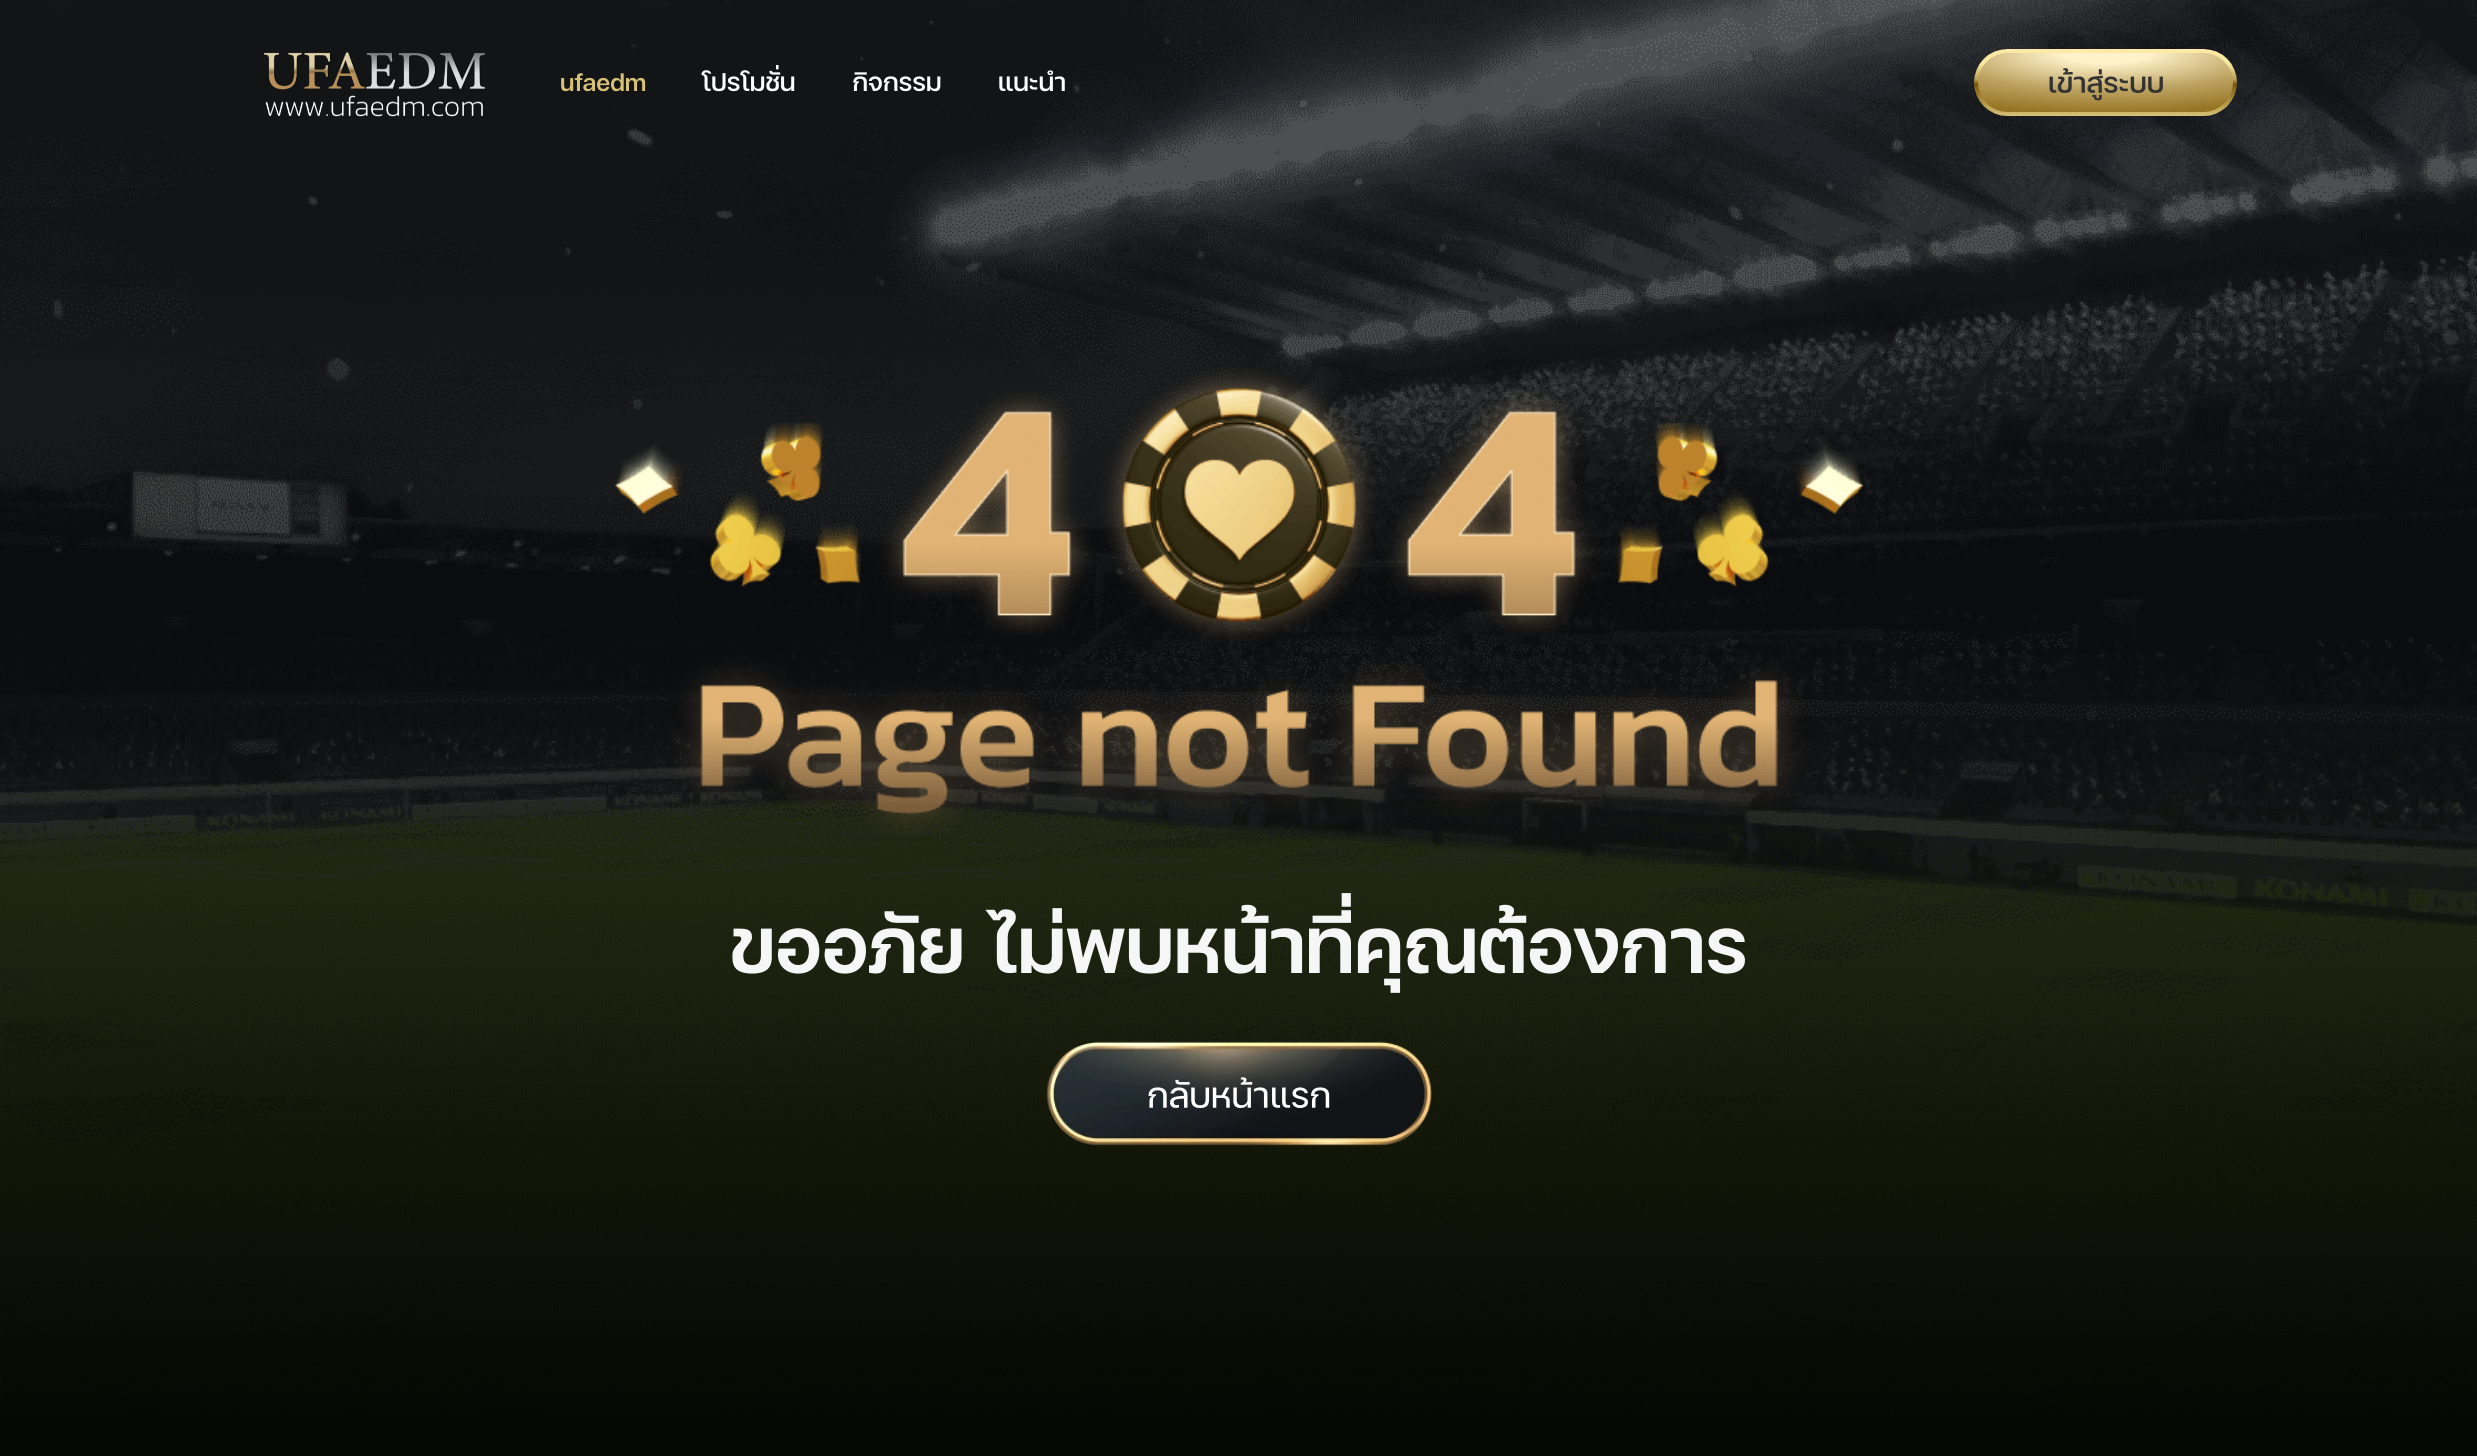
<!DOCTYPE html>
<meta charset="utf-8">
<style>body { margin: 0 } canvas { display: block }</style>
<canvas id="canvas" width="2477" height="1456"></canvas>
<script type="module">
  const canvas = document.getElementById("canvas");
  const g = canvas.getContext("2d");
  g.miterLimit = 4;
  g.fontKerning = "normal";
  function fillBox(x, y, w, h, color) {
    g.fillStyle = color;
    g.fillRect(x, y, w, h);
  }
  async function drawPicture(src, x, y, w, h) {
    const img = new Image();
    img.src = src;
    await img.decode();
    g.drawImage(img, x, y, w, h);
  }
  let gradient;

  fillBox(0, 0, 2477, 1456, "#000000");
  await drawPicture("pic1.png", 0, 0, 2477, 1456);
  await drawPicture("pic2.png", 263, 52, 223, 65);
  await drawPicture("pic3.png", 561, 73, 85, 19);
  await drawPicture("pic4.png", 701, 65, 94, 27);
  await drawPicture("pic5.png", 853, 72, 88, 20);
  await drawPicture("pic6.png", 999, 70, 66, 22);
  gradient = g.createLinearGradient(2105, 49, 2105, 116);
  gradient.addColorStop(0, "#FFEAAB");
  gradient.addColorStop(0.22, "#F5E89C");
  gradient.addColorStop(0.46, "#BA9E4F");
  gradient.addColorStop(0.52, "#7B5609");
  gradient.addColorStop(1, "#D7C275");
  g.fillStyle = gradient;
  g.beginPath();
  g.roundRect(1974, 49, 263, 67, 33.5);
  g.fill();
  gradient = g.createRadialGradient(2105, 226.13, 0, 2105, 226.13, 256);
  gradient.addColorStop(0.17, "#FFF2CA");
  gradient.addColorStop(0.62, "#BDA362");
  gradient.addColorStop(1, "#977525");
  g.fillStyle = gradient;
  g.beginPath();
  g.roundRect(1978, 53, 255, 59, 29.5);
  g.save();
  g.clip();
  g.scale(1, 60 / 256);
  g.fillRect(0, 0, 2477, 6213);
  g.restore();
  await drawPicture("pic7.png", 2049, 68, 114, 33);
  await drawPicture("pic8.png", 615, 367, 1249, 469);
  await drawPicture("pic9.png", 732, 893, 1013, 100);
  await drawPicture("pic10.png", 1046, 1041, 386, 105);
  await drawPicture("pic11.png", 1148, 1077, 182, 31);
</script>
